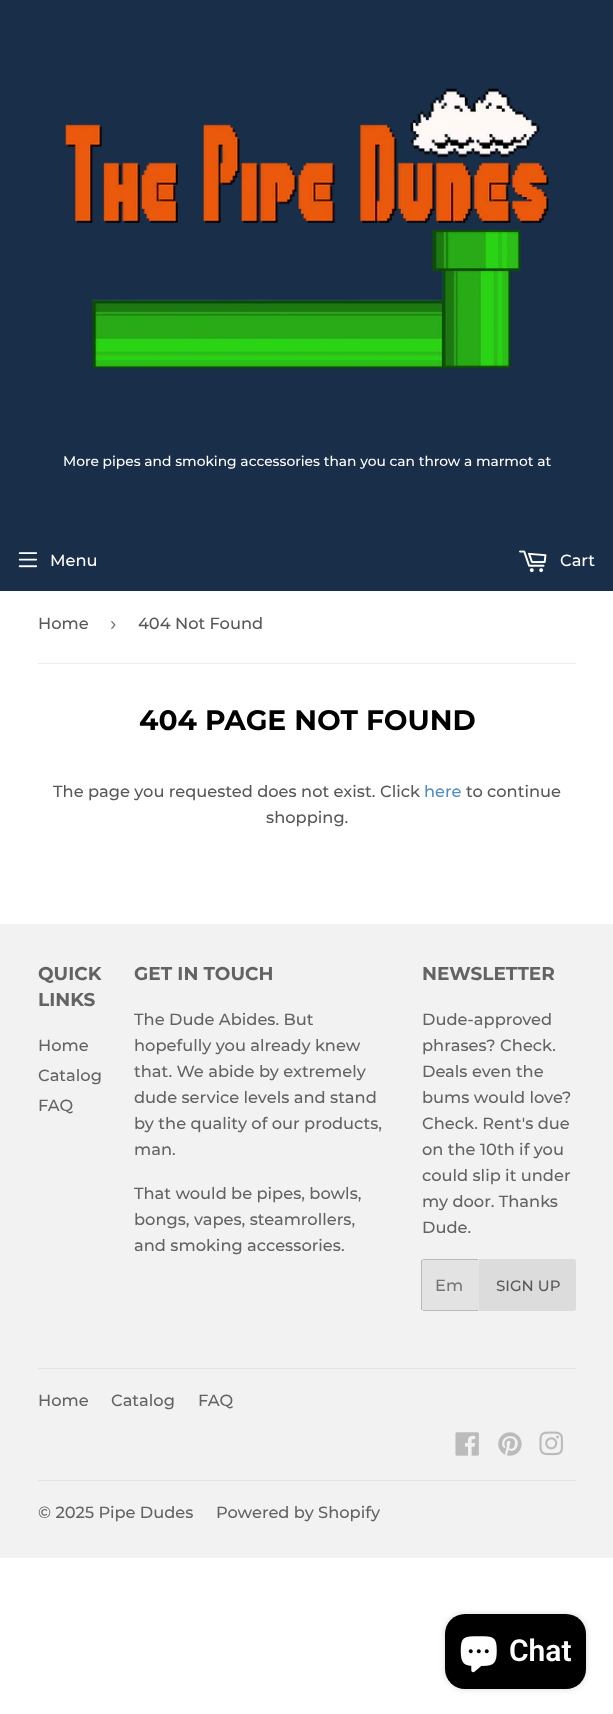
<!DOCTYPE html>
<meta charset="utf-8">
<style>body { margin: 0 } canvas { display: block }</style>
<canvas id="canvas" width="613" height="1714"></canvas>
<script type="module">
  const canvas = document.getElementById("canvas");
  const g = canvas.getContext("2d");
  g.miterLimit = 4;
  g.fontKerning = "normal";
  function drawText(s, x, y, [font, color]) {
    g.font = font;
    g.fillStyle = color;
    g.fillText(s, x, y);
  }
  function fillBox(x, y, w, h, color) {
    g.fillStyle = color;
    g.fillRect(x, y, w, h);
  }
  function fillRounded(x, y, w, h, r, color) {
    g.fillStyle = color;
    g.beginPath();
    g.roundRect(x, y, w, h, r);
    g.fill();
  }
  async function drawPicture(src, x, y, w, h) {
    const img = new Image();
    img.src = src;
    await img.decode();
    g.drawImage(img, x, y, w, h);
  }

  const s1 = ["500 13.8px Montserrat", "#FFFFFF"];
  const s2 = ["500 16.25px Montserrat", "#FFFFFF"];
  const s3 = ["500 16.25px Montserrat", "#585858"];
  const s4 = ["19px Liberation Sans", "#767676"];
  const s5 = ["bold 28.2px Montserrat", "#000000"];
  const s6 = ["500 16.25px Montserrat", "#528EC1"];
  const s7 = ["bold 18.5px Montserrat", "#636363"];
  const s8 = ["500 16.25px Montserrat", "#636363"];
  const s9 = ["500 16.25px Montserrat", "#767676"];
  const s10 = ["500 15px Montserrat", "#585858"];
  const s11 = ["600 30px Roboto", "#FFFFFF"];

  fillBox(0, 0, 613, 1714, "#FFFFFF");
  fillBox(0, 0, 613, 591, "#182E49");
  await drawPicture("pic1.png", 65, 88, 484, 281);
  drawText("More pipes and smoking accessories than you can throw a marmot at", 63, 466, s1);
  await drawPicture("pic2.png", 18, 552, 20, 16);
  drawText("Menu", 50, 566, s2);
  await drawPicture("pic3.png", 519, 550, 28, 23);
  drawText("Cart", 560, 566, s2);
  fillBox(38, 663, 538, 1, "#ECECEC");
  drawText("Home", 38, 629, s3);
  drawText("›", 110, 630, s4);
  drawText("404 Not Found", 138, 629, s3);
  drawText("404 PAGE NOT FOUND", 139, 730, s5);
  drawText("The page you requested does not exist. Click", 53, 797, s3);
  drawText("here", 424, 797, s6);
  drawText("to continue", 466, 797, s3);
  drawText("shopping.", 266, 823, s3);
  fillBox(0, 924, 613, 634, "#F2F2F2");
  drawText("QUICK", 38, 980, s7);
  drawText("LINKS", 38, 1006, s7);
  drawText("Home", 38, 1051, s8);
  drawText("Catalog", 38, 1081, s8);
  drawText("FAQ", 38, 1111, s8);
  drawText("GET IN TOUCH", 134, 980, s7);
  drawText("The Dude Abides. But", 134, 1025, s8);
  drawText("hopefully you already knew", 134, 1051, s8);
  drawText("that. We abide by extremely", 134, 1077, s8);
  drawText("dude service levels and stand", 134, 1103, s8);
  drawText("by the quality of our products,", 134, 1129, s8);
  drawText("man.", 134, 1155, s8);
  drawText("That would be pipes, bowls,", 134, 1199, s8);
  drawText("bongs, vapes, steamrollers,", 134, 1225, s8);
  drawText("and smoking accessories.", 134, 1251, s8);
  drawText("NEWSLETTER", 422, 980, s7);
  drawText("Dude-approved", 422, 1025, s8);
  drawText("phrases? Check.", 422, 1051, s8);
  drawText("Deals even the", 422, 1077, s8);
  drawText("bums would love?", 422, 1103, s8);
  drawText("Check. Rent's due", 422, 1129, s8);
  drawText("on the 10th if you", 422, 1155, s8);
  drawText("could slip it under", 422, 1181, s8);
  drawText("my door. Thanks", 422, 1207, s8);
  drawText("Dude.", 422, 1233, s8);
  fillRounded(421, 1259, 58, 52, 2.5, "#E3E3E3");
  fillBox(423, 1259, 55, 1, "#B9B9B9");
  fillBox(423, 1310, 55, 1, "#B9B9B9");
  fillBox(421, 1260, 1, 50, "#B9B9B9");
  drawText("Em", 435, 1291, s9);
  g.fillStyle = "#DCDCDC";
  g.beginPath();
  g.roundRect(479, 1259, 97, 52, [0, 2.5, 2.5, 0]);
  g.fill();
  drawText("SIGN UP", 496, 1291, s10);
  fillBox(38, 1368, 538, 1, "#E5E5E5");
  drawText("Home", 38, 1406, s8);
  drawText("Catalog", 111, 1406, s8);
  drawText("FAQ", 198, 1406, s8);
  await drawPicture("pic4.png", 455, 1432, 24, 24);
  await drawPicture("pic5.png", 498, 1432, 24, 24);
  await drawPicture("pic6.png", 539, 1431, 24, 25);
  fillBox(38, 1480, 538, 1, "#E5E5E5");
  drawText("© 2025 Pipe Dudes", 38, 1518, s8);
  drawText("Powered by Shopify", 216, 1518, s8);
  g.fillStyle = "rgba(0, 0, 0, 0.15)";
  g.filter = "blur(3px)";
  g.beginPath();
  g.roundRect(445, 1614, 141, 75, 20);
  g.fill();
  g.filter = "none";
  fillRounded(445, 1614, 141, 75, 20, "#000000");
  await drawPicture("pic7.png", 460, 1636, 37, 37);
  drawText("Chat", 509, 1661, s11);
</script>
